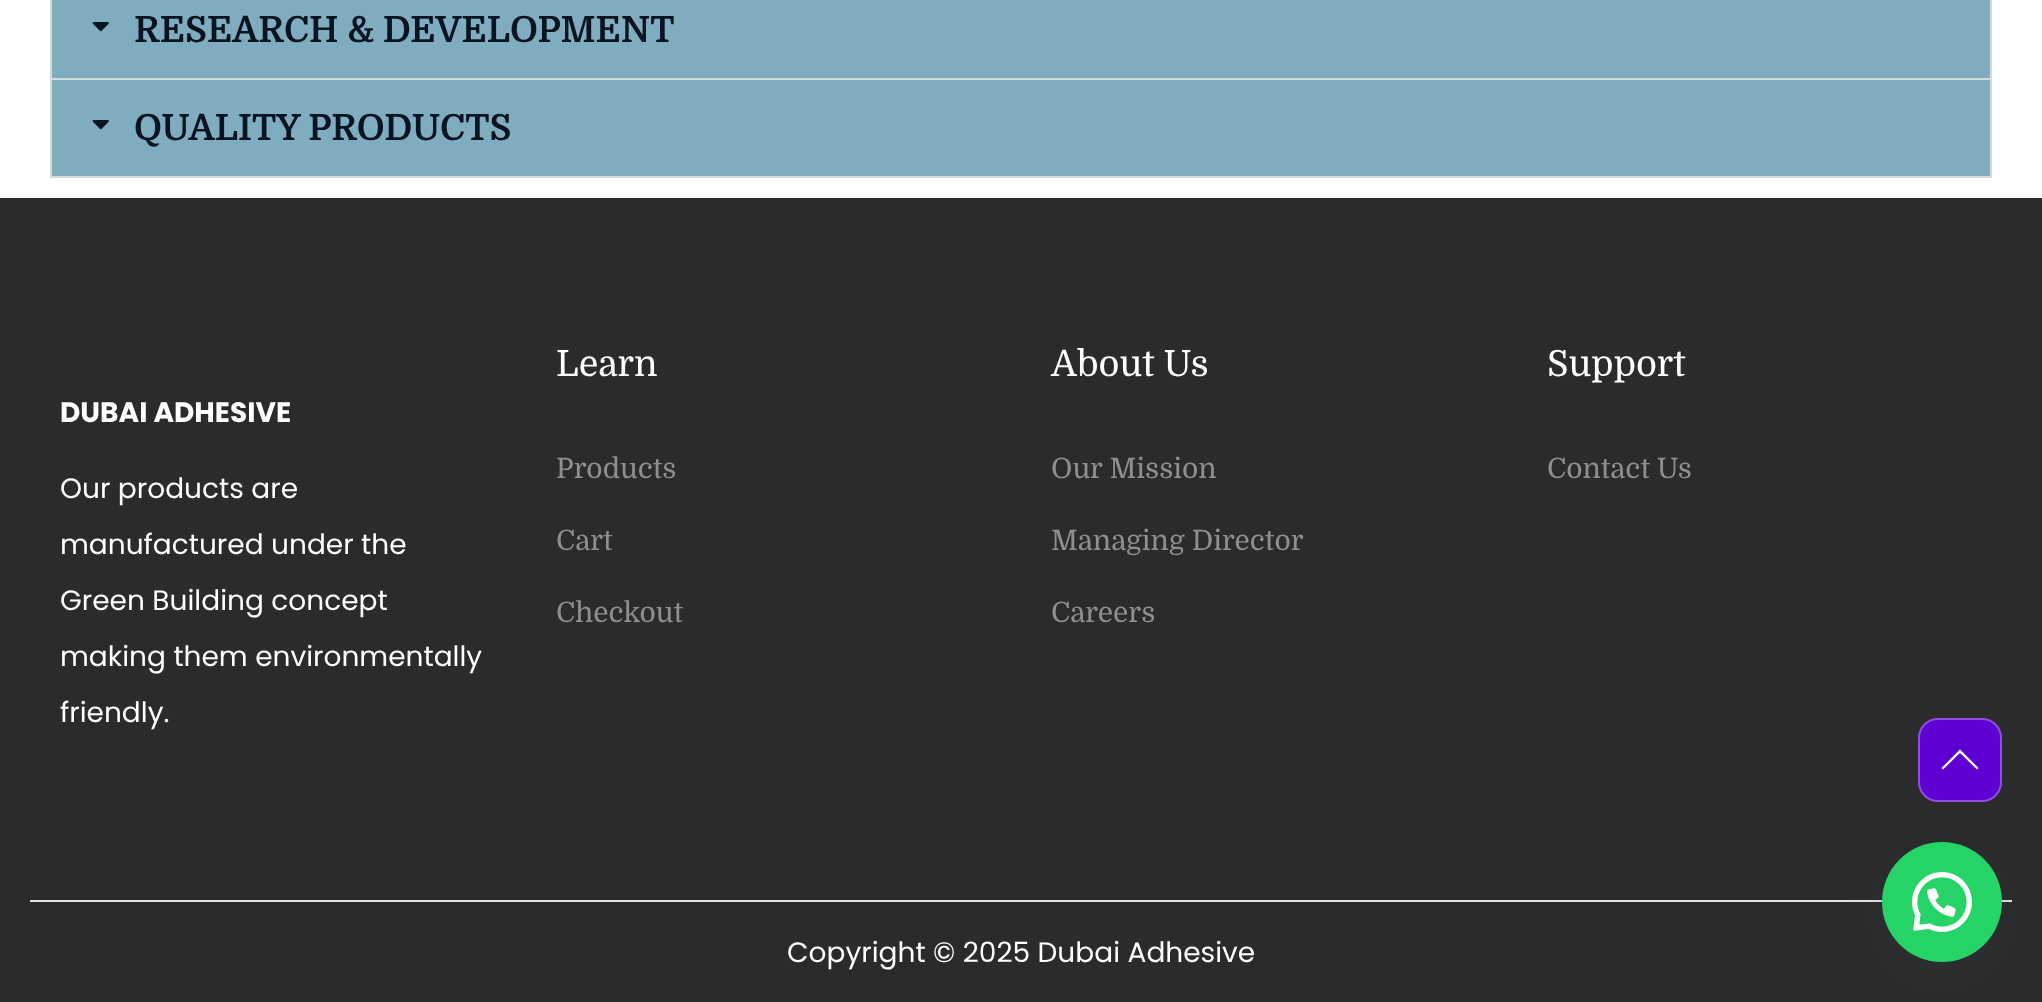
<!DOCTYPE html>
<meta charset="utf-8">
<style>body { margin: 0 } canvas { display: block }</style>
<canvas id="canvas" width="2042" height="1002"></canvas>
<script type="module">
  const canvas = document.getElementById("canvas");
  const g = canvas.getContext("2d");
  g.miterLimit = 4;
  g.fontKerning = "normal";
  function drawText(s, x, y, [font, color]) {
    g.font = font;
    g.fillStyle = color;
    g.fillText(s, x, y);
  }
  function fillBox(x, y, w, h, color) {
    g.fillStyle = color;
    g.fillRect(x, y, w, h);
  }
  function fillRounded(x, y, w, h, r, color) {
    g.fillStyle = color;
    g.beginPath();
    g.roundRect(x, y, w, h, r);
    g.fill();
  }
  async function drawPicture(src, x, y, w, h) {
    const img = new Image();
    img.src = src;
    await img.decode();
    g.drawImage(img, x, y, w, h);
  }

  const s1 = ["bold 36px Domine", "#081420"];
  const s2 = ["bold 28px Poppins", "#FFFFFF"];
  const s3 = ["28px Poppins", "#FFFFFF"];
  const s4 = ["36px Domine", "#FFFFFF"];
  const s5 = ["28px Domine", "#8F8F8F"];

  fillBox(0, 0, 2042, 1002, "#FFFFFF");
  fillBox(1990, 0, 2, 178, "#D5D8DC");
  fillBox(50, 78, 1942, 2, "#D5D8DC");
  fillBox(50, 0, 2, 80, "#D5D8DC");
  fillBox(52, 0, 1938, 78, "#80ACBF");
  await drawPicture("pic1.png", 92, 22, 17, 10);
  drawText("RESEARCH & DEVELOPMENT", 134, 42, s1);
  fillBox(50, 176, 1942, 2, "#D5D8DC");
  fillBox(50, 80, 2, 98, "#D5D8DC");
  fillBox(52, 80, 1938, 96, "#80ACBF");
  await drawPicture("pic1.png", 92, 120, 17, 10);
  drawText("QUALITY PRODUCTS", 134, 140, s1);
  fillBox(0, 198, 2042, 804, "#2B2B2B");
  drawText("DUBAI ADHESIVE", 60, 422, s2);
  drawText("Our products are", 60, 498, s3);
  drawText("manufactured under the", 60, 554, s3);
  drawText("Green Building concept", 60, 610, s3);
  drawText("making them environmentally", 60, 666, s3);
  drawText("friendly.", 60, 722, s3);
  drawText("Learn", 556, 376, s4);
  drawText("Products", 556, 478, s5);
  drawText("Cart", 556, 550, s5);
  drawText("Checkout", 556, 622, s5);
  drawText("About Us", 1051, 376, s4);
  drawText("Our Mission", 1051, 478, s5);
  drawText("Managing Director", 1051, 550, s5);
  drawText("Careers", 1051, 622, s5);
  drawText("Support", 1547, 376, s4);
  drawText("Contact Us", 1547, 478, s5);
  fillBox(30, 900, 1982, 2, "#E3E3E3");
  drawText("Copyright © 2025 Dubai Adhesive", 787, 962, s3);
  fillRounded(1918, 718, 84, 84, 20, "#6001D3");
  g.beginPath();
  g.roundRect(1919, 719, 82, 82, 19);
  g.strokeStyle = "rgba(255, 255, 255, 0.3)";
  g.lineWidth = 2;
  g.stroke();
  g.fillStyle = "#FFFFFF";
  g.beginPath();
  g.moveTo(1978.5, 768);
  g.lineTo(1977, 769.5);
  g.lineTo(1960, 753);
  g.lineTo(1943, 769.5);
  g.lineTo(1941.5, 768);
  g.lineTo(1960, 749.5);
  g.closePath();
  g.fill();
  g.fillStyle = "rgba(45, 62, 79, 0.3)";
  g.filter = "blur(25px)";
  g.beginPath();
  g.roundRect(1892, 868, 100, 100, 50);
  g.fill();
  g.filter = "none";
  g.fillStyle = "#25D366";
  g.beginPath();
  g.arc(1942, 902, 60, 0, Math.PI * 2);
  g.fill();
  await drawPicture("pic2.png", 1912, 872, 60, 60);
</script>
